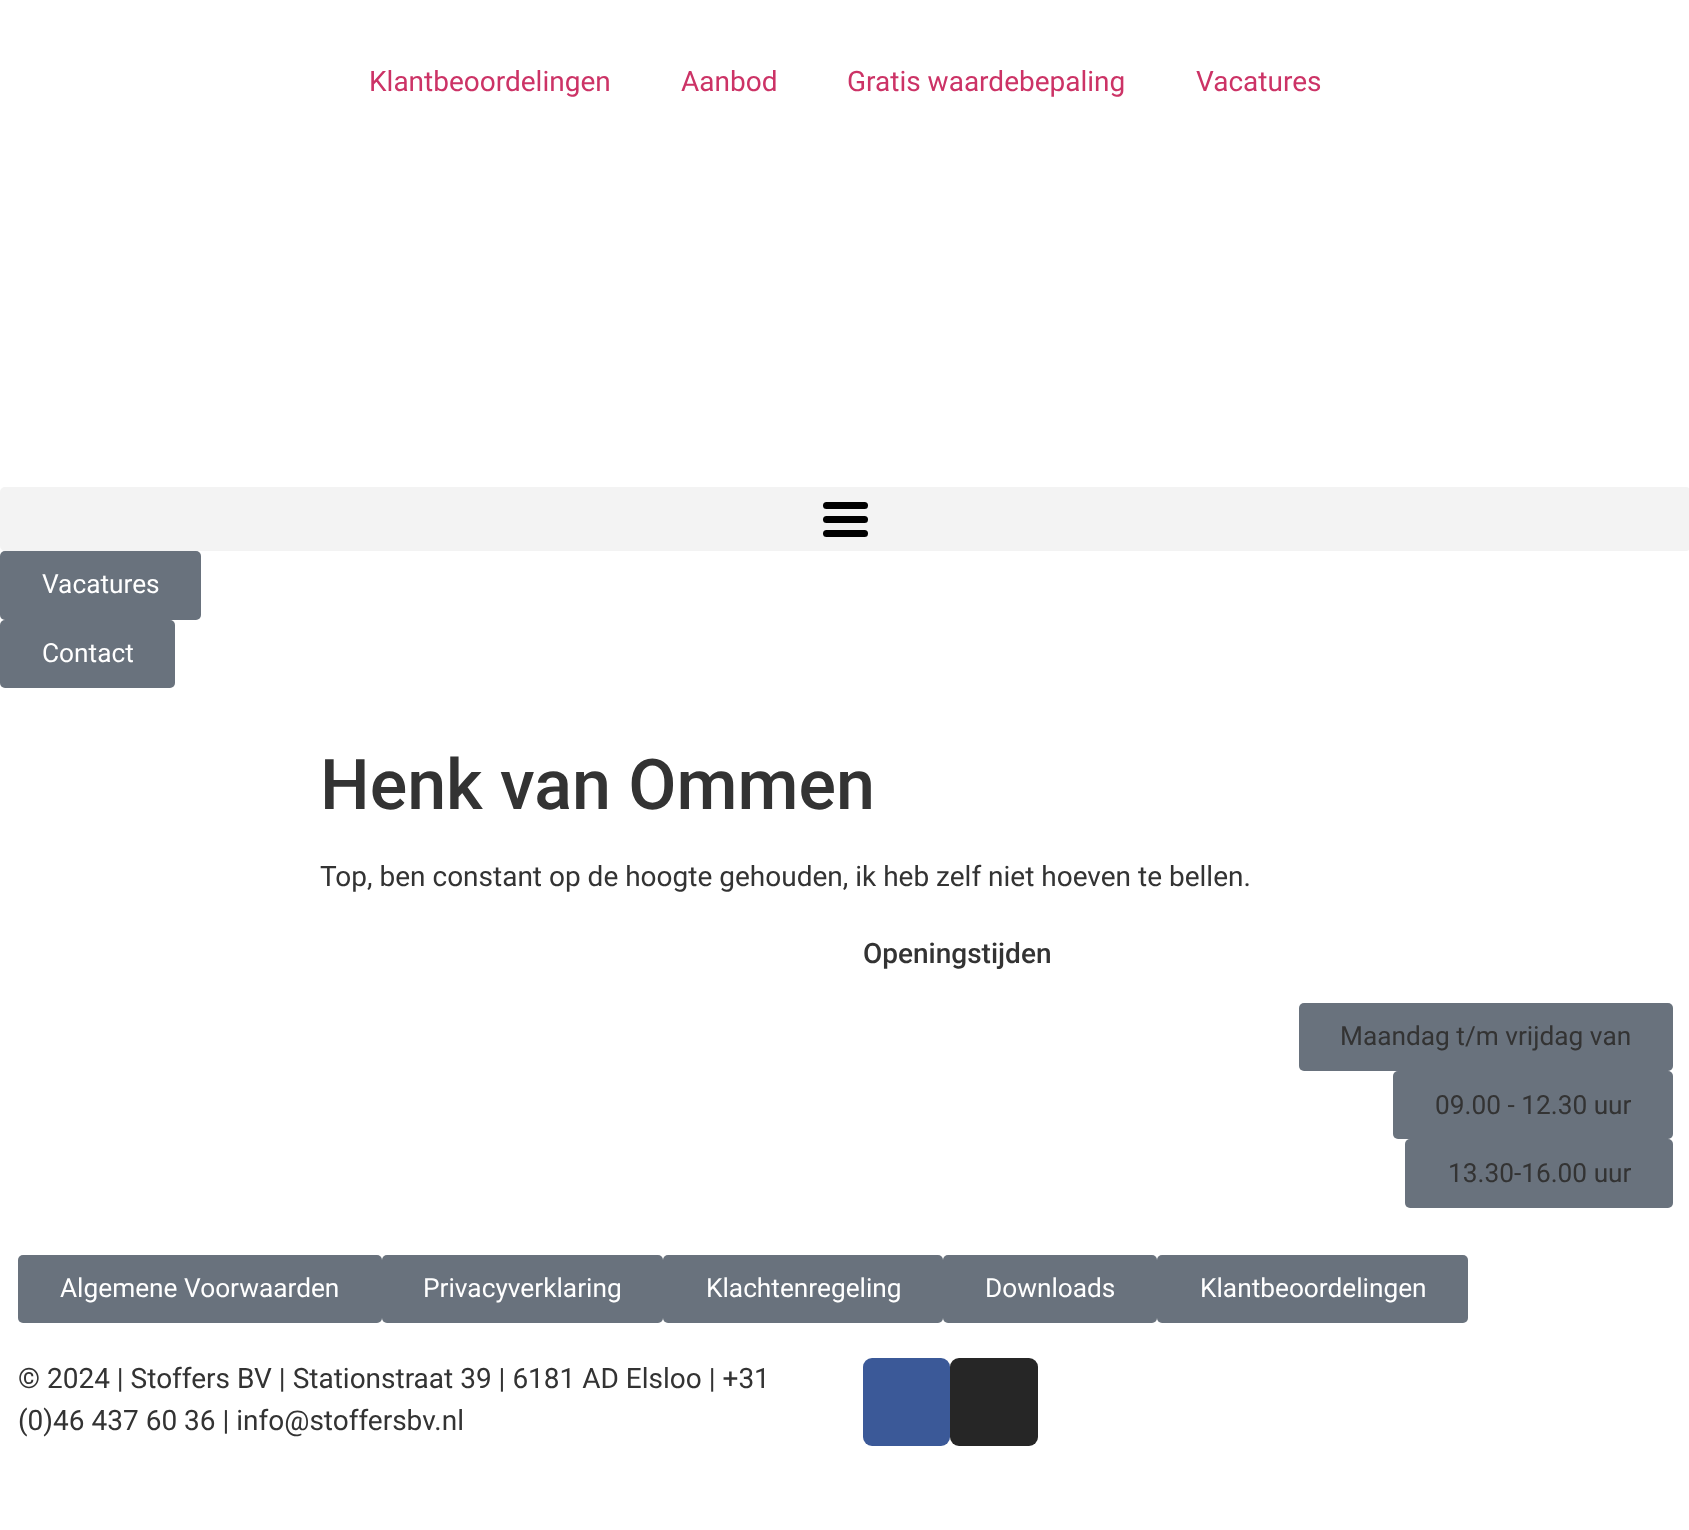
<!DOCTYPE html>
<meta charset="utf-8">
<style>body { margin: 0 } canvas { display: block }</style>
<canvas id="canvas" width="1689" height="1530"></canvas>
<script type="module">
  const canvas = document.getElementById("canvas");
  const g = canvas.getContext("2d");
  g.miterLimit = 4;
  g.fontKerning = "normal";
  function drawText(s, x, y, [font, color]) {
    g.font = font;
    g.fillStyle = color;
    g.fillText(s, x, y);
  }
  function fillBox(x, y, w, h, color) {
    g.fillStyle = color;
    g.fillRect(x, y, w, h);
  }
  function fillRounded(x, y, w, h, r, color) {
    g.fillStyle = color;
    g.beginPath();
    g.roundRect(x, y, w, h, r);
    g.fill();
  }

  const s1 = ["28px Roboto", "#CC3366"];
  const s2 = ["26.25px Roboto", "#FFFFFF"];
  const s3 = ["500 70px Roboto", "#333333"];
  const s4 = ["28px Roboto", "#333333"];
  const s5 = ["500 28px Roboto", "#333333"];
  const s6 = ["26.25px Roboto", "#333333"];

  fillBox(0, 0, 1689, 1530, "#FFFFFF");
  drawText("Klantbeoordelingen", 369, 91, s1);
  drawText("Aanbod", 681, 91, s1);
  drawText("Gratis waardebepaling", 847, 91, s1);
  drawText("Vacatures", 1196, 91, s1);
  fillRounded(0, 487, 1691, 64, 5, "#F3F3F3");
  fillRounded(823, 516, 45, 7, 3.5, "#000000");
  fillRounded(823, 502, 45, 7, 3.5, "#000000");
  fillRounded(823, 530, 45, 7, 3.5, "#000000");
  fillRounded(0, 551, 201, 69, 5, "#69727D");
  drawText("Vacatures", 42, 593, s2);
  fillRounded(0, 620, 175, 68, 5, "#69727D");
  drawText("Contact", 42, 662, s2);
  drawText("Henk van Ommen", 320, 809, s3);
  drawText("Top, ben constant op de hoogte gehouden, ik heb zelf niet hoeven te bellen.", 320, 886, s4);
  drawText("Openingstijden", 863, 963, s5);
  fillRounded(1299, 1003, 374, 68, 5, "#69727D");
  drawText("Maandag t/m vrijdag van", 1340, 1045, s6);
  fillRounded(1393, 1071, 280, 68, 5, "#69727D");
  drawText("09.00 - 12.30 uur", 1435, 1114, s6);
  fillRounded(1405, 1139, 268, 69, 5, "#69727D");
  drawText("13.30-16.00 uur", 1448, 1182, s6);
  fillRounded(18, 1255, 364, 68, 5, "#69727D");
  drawText("Algemene Voorwaarden", 60, 1297, s2);
  fillRounded(382, 1255, 281, 68, 5, "#69727D");
  drawText("Privacyverklaring", 423, 1297, s2);
  fillRounded(663, 1255, 280, 68, 5, "#69727D");
  drawText("Klachtenregeling", 706, 1297, s2);
  fillRounded(943, 1255, 214, 68, 5, "#69727D");
  drawText("Downloads", 985, 1297, s2);
  fillRounded(1157, 1255, 311, 68, 5, "#69727D");
  drawText("Klantbeoordelingen", 1200, 1297, s2);
  drawText("© 2024 | Stoffers BV | Stationstraat 39 | 6181 AD Elsloo | +31", 18, 1388, s4);
  drawText("(0)46 437 60 36 | info@stoffersbv.nl", 18, 1430, s4);
  fillRounded(863, 1358, 87, 88, 9, "#3B5998");
  fillRounded(950, 1358, 88, 88, 9, "#262626");
</script>
